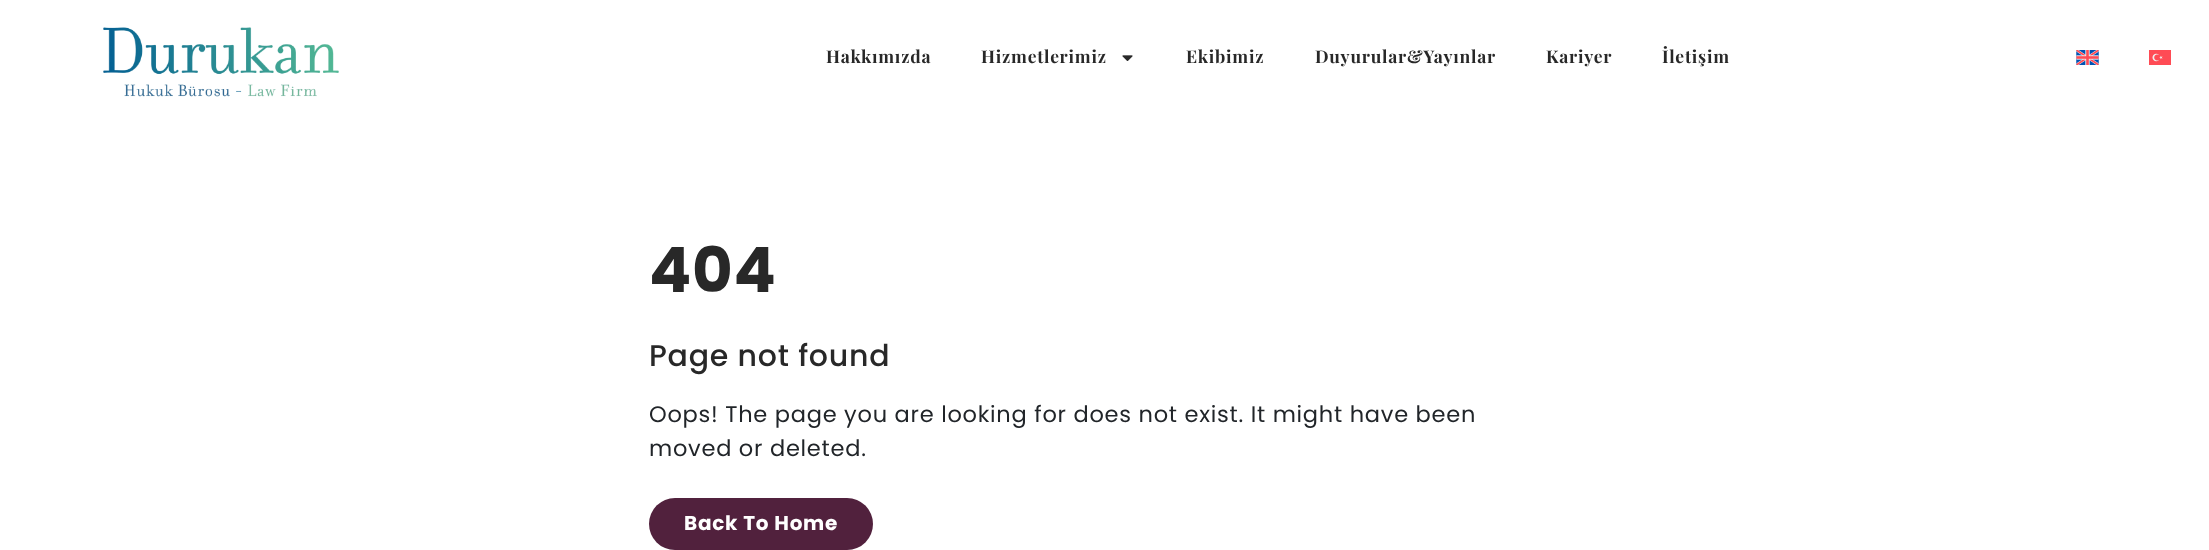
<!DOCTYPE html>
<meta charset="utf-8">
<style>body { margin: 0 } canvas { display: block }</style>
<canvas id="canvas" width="2209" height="550"></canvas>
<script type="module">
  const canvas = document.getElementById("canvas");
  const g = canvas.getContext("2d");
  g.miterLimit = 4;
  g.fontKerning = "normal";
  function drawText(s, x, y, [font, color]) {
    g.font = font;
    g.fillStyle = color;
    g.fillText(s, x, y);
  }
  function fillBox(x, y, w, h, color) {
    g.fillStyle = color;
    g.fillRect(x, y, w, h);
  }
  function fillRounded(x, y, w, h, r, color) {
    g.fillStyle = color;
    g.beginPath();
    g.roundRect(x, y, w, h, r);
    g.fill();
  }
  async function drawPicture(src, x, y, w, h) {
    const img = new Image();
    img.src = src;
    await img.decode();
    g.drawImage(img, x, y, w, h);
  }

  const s1 = ["bold 17.5px Playfair Display", "#282828"];
  const s2 = ["bold 62.5px Poppins", "#282828"];
  const s3 = ["500 30px Poppins", "#282828"];
  const s4 = ["22.5px Poppins", "#212529"];
  const s5 = ["bold 20px Poppins", "#FFFFFF"];

  fillBox(0, 0, 2209, 550, "#FFFFFF");
  await drawPicture("pic1.png", 103, 27, 236, 70);
  g.letterSpacing = "0.75px";
  drawText("Hakkımızda", 826, 63, s1);
  drawText("Hizmetlerimiz", 981, 63, s1);
  await drawPicture("pic2.png", 1122, 55, 11, 6);
  drawText("Ekibimiz", 1186, 63, s1);
  drawText("Duyurular&Yayınlar", 1315, 63, s1);
  drawText("Kariyer", 1546, 63, s1);
  drawText("İletişim", 1662, 63, s1);
  await drawPicture("pic3.png", 2076, 50, 23, 15);
  await drawPicture("pic4.png", 2149, 50, 22, 15);
  drawText("404", 649, 292, s2);
  drawText("Page not found", 649, 366, s3);
  drawText("Oops! The page you are looking for does not exist. It might have been", 649, 422, s4);
  drawText("moved or deleted.", 649, 456, s4);
  fillRounded(649, 498, 224, 52, 26, "#51213D");
  drawText("Back To Home", 684, 530, s5);
</script>
